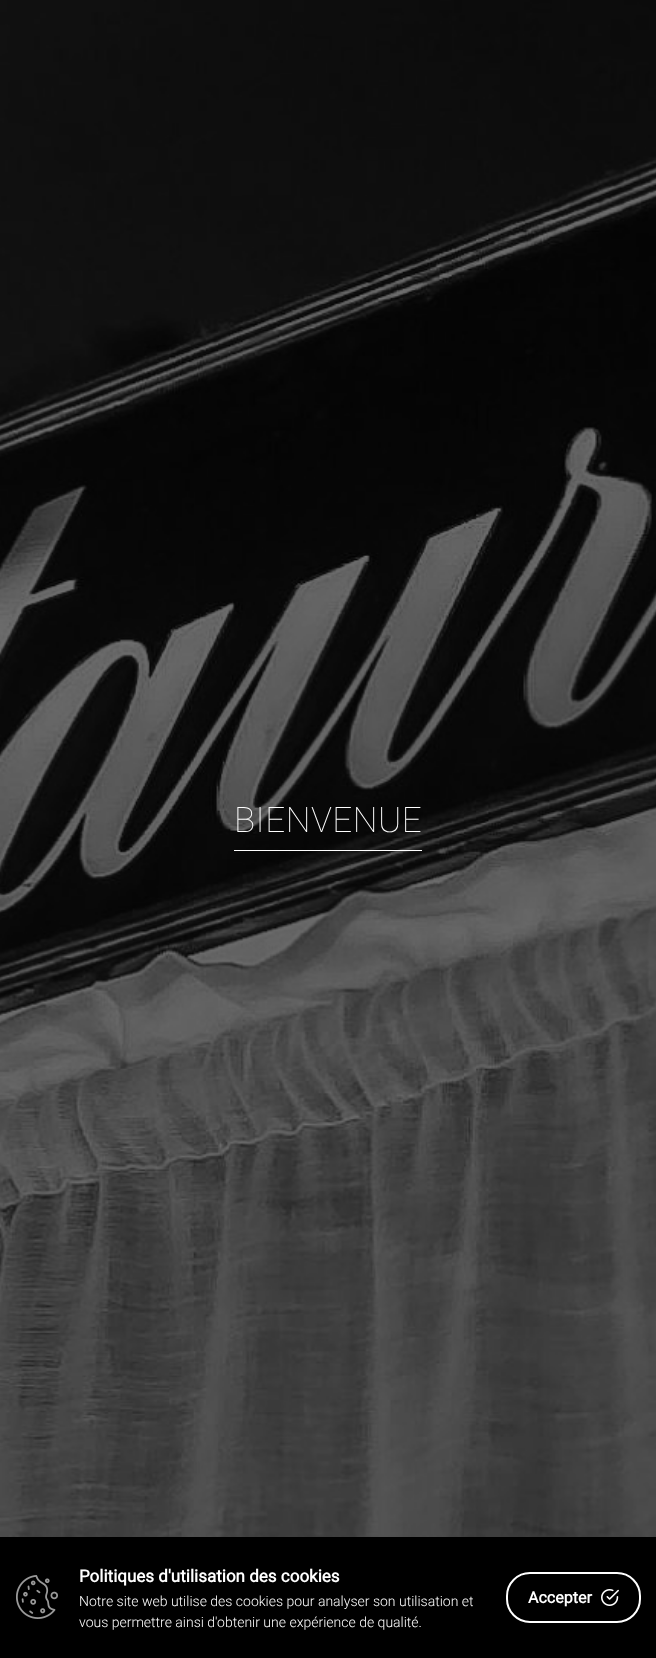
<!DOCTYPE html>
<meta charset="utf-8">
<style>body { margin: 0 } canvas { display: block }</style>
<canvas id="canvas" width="656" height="1658"></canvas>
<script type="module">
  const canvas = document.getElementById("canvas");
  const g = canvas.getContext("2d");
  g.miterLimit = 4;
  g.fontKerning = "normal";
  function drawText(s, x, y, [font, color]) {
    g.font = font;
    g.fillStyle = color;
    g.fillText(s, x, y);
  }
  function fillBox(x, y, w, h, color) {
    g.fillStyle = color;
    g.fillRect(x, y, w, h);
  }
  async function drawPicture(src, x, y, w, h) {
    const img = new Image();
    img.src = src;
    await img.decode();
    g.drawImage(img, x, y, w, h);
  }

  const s1 = ["100 35px Roboto", "#FFFFFF"];
  const s2 = ["bold 17px Roboto", "#FFFFFF"];
  const s3 = ["300 14px Roboto", "#FFFFFF"];
  const s4 = ["bold 16px Roboto", "#FFFFFF"];

  fillBox(0, 0, 656, 1658, "#FFFFFF");
  await drawPicture("pic1.png", 0, 0, 656, 1537);
  fillBox(234, 850, 188, 1, "#FFFFFF");
  g.letterSpacing = "0.5px";
  drawText("BIENVENUE", 234, 832, s1);
  fillBox(0, 1537, 656, 121, "#000000");
  await drawPicture("pic2.png", 16, 1575, 42, 44);
  g.letterSpacing = "0px";
  drawText("Politiques d'utilisation des cookies", 79, 1582, s2);
  drawText("Notre site web utilise des cookies pour analyser son utilisation et", 79, 1606, s3);
  drawText("vous permettre ainsi d'obtenir une expérience de qualité.", 79, 1627, s3);
  g.beginPath();
  g.roundRect(507, 1573, 133, 49, 23);
  g.strokeStyle = "#FFFFFF";
  g.lineWidth = 2;
  g.stroke();
  drawText("Accepter", 528, 1603, s4);
  await drawPicture("pic3.png", 601, 1589, 18, 17);
</script>
